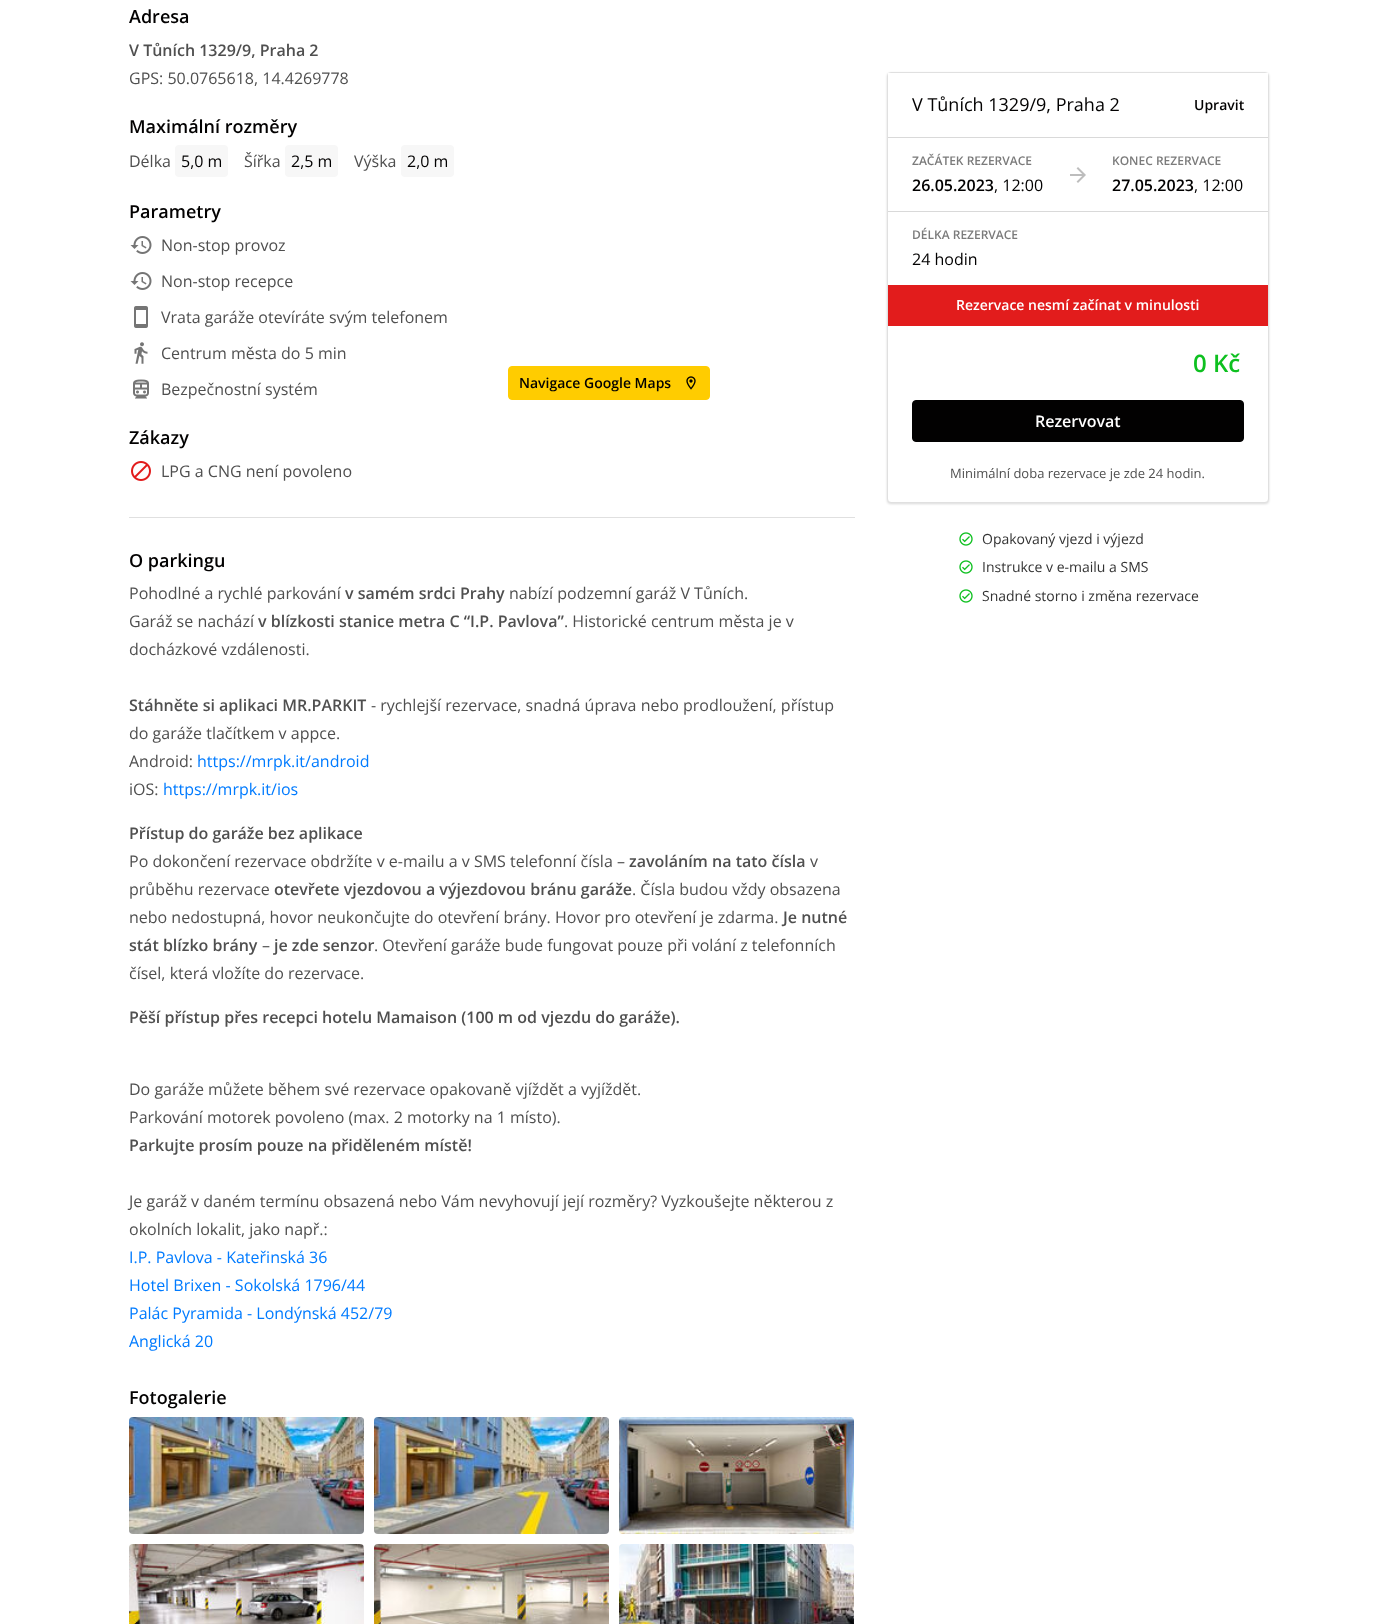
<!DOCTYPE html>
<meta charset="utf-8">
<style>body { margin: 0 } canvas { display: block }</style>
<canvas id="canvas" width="1398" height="1624"></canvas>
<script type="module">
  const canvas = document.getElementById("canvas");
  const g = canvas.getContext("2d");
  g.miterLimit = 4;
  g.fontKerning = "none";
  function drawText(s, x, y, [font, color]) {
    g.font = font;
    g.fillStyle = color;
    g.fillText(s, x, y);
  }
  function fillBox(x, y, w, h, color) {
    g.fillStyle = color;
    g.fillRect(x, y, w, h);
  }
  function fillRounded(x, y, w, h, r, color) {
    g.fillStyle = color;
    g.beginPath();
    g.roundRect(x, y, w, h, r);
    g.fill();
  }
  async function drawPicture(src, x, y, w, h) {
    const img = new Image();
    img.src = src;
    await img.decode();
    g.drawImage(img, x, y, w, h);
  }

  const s1 = ["600 18px Open Sans", "#020101"];
  const s2 = ["600 16px Open Sans", "#4F4F4F"];
  const s3 = ["16px Open Sans", "#4F4F4F"];
  const s4 = ["16px Open Sans", "#020101"];
  const s5 = ["600 14px Open Sans", "#020101"];
  const s6 = ["16px Open Sans", "#007BFF"];
  const s7 = ["18px Open Sans", "#020101"];
  const s8 = ["600 12px Open Sans", "#7B7B7B"];
  const s9 = ["600 16px Open Sans", "#020101"];
  const s10 = ["600 14px Open Sans", "#FFFFFF"];
  const s11 = ["600 24px Open Sans", "#0EC020"];
  const s12 = ["600 16px Open Sans", "#FFFFFF"];
  const s13 = ["13px Open Sans", "#4F4F4F"];
  const s14 = ["14px Open Sans", "#333333"];

  fillBox(0, 0, 1398, 1624, "#FFFFFF");
  fillBox(129, 517, 726, 1, "#E0E0E0");
  drawText("Adresa", 129, 23, s1);
  drawText("V Tůních 1329/9, Praha 2", 129, 56, s2);
  drawText("GPS: 50.0765618, 14.4269778", 129, 84, s3);
  drawText("Maximální rozměry", 129, 133, s1);
  drawText("Délka", 129, 167, s3);
  fillRounded(175, 145, 53, 32, 4, "#F7F7F7");
  drawText("5,0 m", 181, 167, s4);
  drawText("Šířka", 244, 167, s3);
  fillRounded(285, 145, 53, 32, 4, "#F7F7F7");
  drawText("2,5 m", 291, 167, s4);
  drawText("Výška", 354, 167, s3);
  fillRounded(401, 145, 53, 32, 4, "#F7F7F7");
  drawText("2,0 m", 407, 167, s4);
  drawText("Parametry", 129, 218, s1);
  await drawPicture("pic1.png", 130, 236, 22, 18);
  drawText("Non-stop provoz", 161, 251, s3);
  await drawPicture("pic1.png", 130, 272, 22, 18);
  drawText("Non-stop recepce", 161, 287, s3);
  await drawPicture("pic2.png", 134, 306, 14, 22);
  drawText("Vrata garáže otevíráte svým telefonem", 161, 323, s3);
  await drawPicture("pic3.png", 134, 342, 14, 22);
  drawText("Centrum města do 5 min", 161, 359, s3);
  await drawPicture("pic4.png", 133, 379, 16, 20);
  drawText("Bezpečnostní systém", 161, 395, s3);
  drawText("Zákazy", 129, 444, s1);
  await drawPicture("pic5.png", 131, 461, 20, 20);
  drawText("LPG a CNG není povoleno", 161, 477, s3);
  g.fillStyle = "#FFCC00";
  g.beginPath();
  g.roundRect(508.5, 366.5, 201, 33, 3.5);
  g.fill();
  g.strokeStyle = "#FFCC00";
  g.stroke();
  drawText("Navigace Google Maps", 519, 388, s5);
  await drawPicture("pic6.png", 686, 376, 10, 14);
  drawText("O parkingu", 129, 567, s1);
  drawText("Pohodlné a rychlé parkování", 129, 599, s3);
  drawText("v samém srdci Prahy", 345, 599, s2);
  drawText("nabízí podzemní garáž V Tůních.", 509, 599, s3);
  drawText("Garáž se nachází", 129, 627, s3);
  drawText("v blízkosti stanice metra C “I.P. Pavlova”", 258, 627, s2);
  drawText(". Historické centrum města je v", 564, 627, s3);
  drawText("docházkové vzdálenosti.", 129, 655, s3);
  drawText("Stáhněte si aplikaci MR.PARKIT", 129, 711, s2);
  drawText("- rychlejší rezervace, snadná úprava nebo prodloužení, přístup", 371, 711, s3);
  drawText("do garáže tlačítkem v appce.", 129, 739, s3);
  drawText("Android:", 129, 767, s3);
  drawText("https://mrpk.it/android", 197, 767, s6);
  drawText("iOS:", 129, 795, s3);
  drawText("https://mrpk.it/ios", 163, 795, s6);
  drawText("Přístup do garáže bez aplikace", 129, 839, s2);
  drawText("Po dokončení rezervace obdržíte v e-mailu a v SMS telefonní čísla –", 129, 867, s3);
  drawText("zavoláním na tato čísla", 629, 867, s2);
  drawText("v", 810, 867, s3);
  drawText("průběhu rezervace", 129, 895, s3);
  drawText("otevřete vjezdovou a výjezdovou bránu garáže", 274, 895, s2);
  drawText(". Čísla budou vždy obsazena", 632, 895, s3);
  drawText("nebo nedostupná, hovor neukončujte do otevření brány. Hovor pro otevření je zdarma.", 129, 923, s3);
  drawText("Je nutné", 783, 923, s2);
  drawText("stát blízko brány", 129, 951, s2);
  drawText("–", 262, 951, s3);
  drawText("je zde senzor", 274, 951, s2);
  drawText(". Otevření garáže bude fungovat pouze při volání z telefonních", 374, 951, s3);
  drawText("čísel, která vložíte do rezervace.", 129, 979, s3);
  drawText("Pěší přístup přes recepci hotelu Mamaison (100 m od vjezdu do garáže).", 129, 1023, s2);
  drawText("Do garáže můžete během své rezervace opakovaně vjíždět a vyjíždět.", 129, 1095, s3);
  drawText("Parkování motorek povoleno (max. 2 motorky na 1 místo).", 129, 1123, s3);
  drawText("Parkujte prosím pouze na přiděleném místě!", 129, 1151, s2);
  drawText("Je garáž v daném termínu obsazená nebo Vám nevyhovují její rozměry? Vyzkoušejte některou z", 129, 1207, s3);
  drawText("okolních lokalit, jako např.:", 129, 1235, s3);
  drawText("I.P. Pavlova - Kateřinská 36", 129, 1263, s6);
  drawText("Hotel Brixen - Sokolská 1796/44", 129, 1291, s6);
  drawText("Palác Pyramida - Londýnská 452/79", 129, 1319, s6);
  drawText("Anglická 20", 129, 1347, s6);
  drawText("Fotogalerie", 129, 1404, s1);
  await drawPicture("pic7.png", 129, 1417, 235, 117);
  await drawPicture("pic8.png", 374, 1417, 235, 117);
  await drawPicture("pic9.png", 619, 1417, 235, 117);
  await drawPicture("pic10.png", 129, 1544, 235, 80);
  await drawPicture("pic11.png", 374, 1544, 235, 80);
  await drawPicture("pic12.png", 619, 1544, 235, 80);
  g.fillStyle = "rgba(0, 0, 0, 0.15)";
  g.filter = "blur(1px)";
  g.beginPath();
  g.roundRect(887, 73, 382, 431, 4);
  g.fill();
  g.filter = "none";
  g.fillStyle = "#FFFFFF";
  g.beginPath();
  g.roundRect(887.5, 72.5, 381, 430, 3.5);
  g.fill();
  g.strokeStyle = "#E0E0E0";
  g.stroke();
  fillBox(888, 73, 380, 3, "#FFFFFF");
  fillBox(888, 137, 380, 1, "#D9D9D9");
  drawText("V Tůních 1329/9, Praha 2", 912, 111, s7);
  drawText("Upravit", 1194, 110, s5);
  fillBox(888, 211, 380, 1, "#D9D9D9");
  drawText("ZAČÁTEK REZERVACE", 912, 165, s8);
  drawText("26.05.2023", 912, 191, s9);
  drawText(", 12:00", 994, 191, s4);
  await drawPicture("pic13.png", 1070, 167, 16, 16);
  drawText("KONEC REZERVACE", 1112, 165, s8);
  drawText("27.05.2023", 1112, 191, s9);
  drawText(", 12:00", 1194, 191, s4);
  drawText("DÉLKA REZERVACE", 912, 239, s8);
  drawText("24 hodin", 912, 265, s4);
  fillBox(888, 285, 380, 41, "#E21C1C");
  drawText("Rezervace nesmí začínat v minulosti", 956, 310, s10);
  drawText("0 Kč", 1193, 372, s11);
  g.fillStyle = "#020101";
  g.beginPath();
  g.roundRect(912.5, 400.5, 331, 41, 3.5);
  g.fill();
  g.strokeStyle = "#020101";
  g.stroke();
  drawText("Rezervovat", 1035, 427, s12);
  drawText("Minimální doba rezervace je zde 24 hodin.", 950, 478, s13);
  await drawPicture("pic14.png", 959, 532, 14, 14);
  drawText("Opakovaný vjezd i výjezd", 982, 544, s14);
  await drawPicture("pic14.png", 959, 560, 14, 14);
  drawText("Instrukce v e-mailu a SMS", 982, 572, s14);
  await drawPicture("pic14.png", 959, 589, 14, 14);
  drawText("Snadné storno i změna rezervace", 982, 601, s14);
</script>
